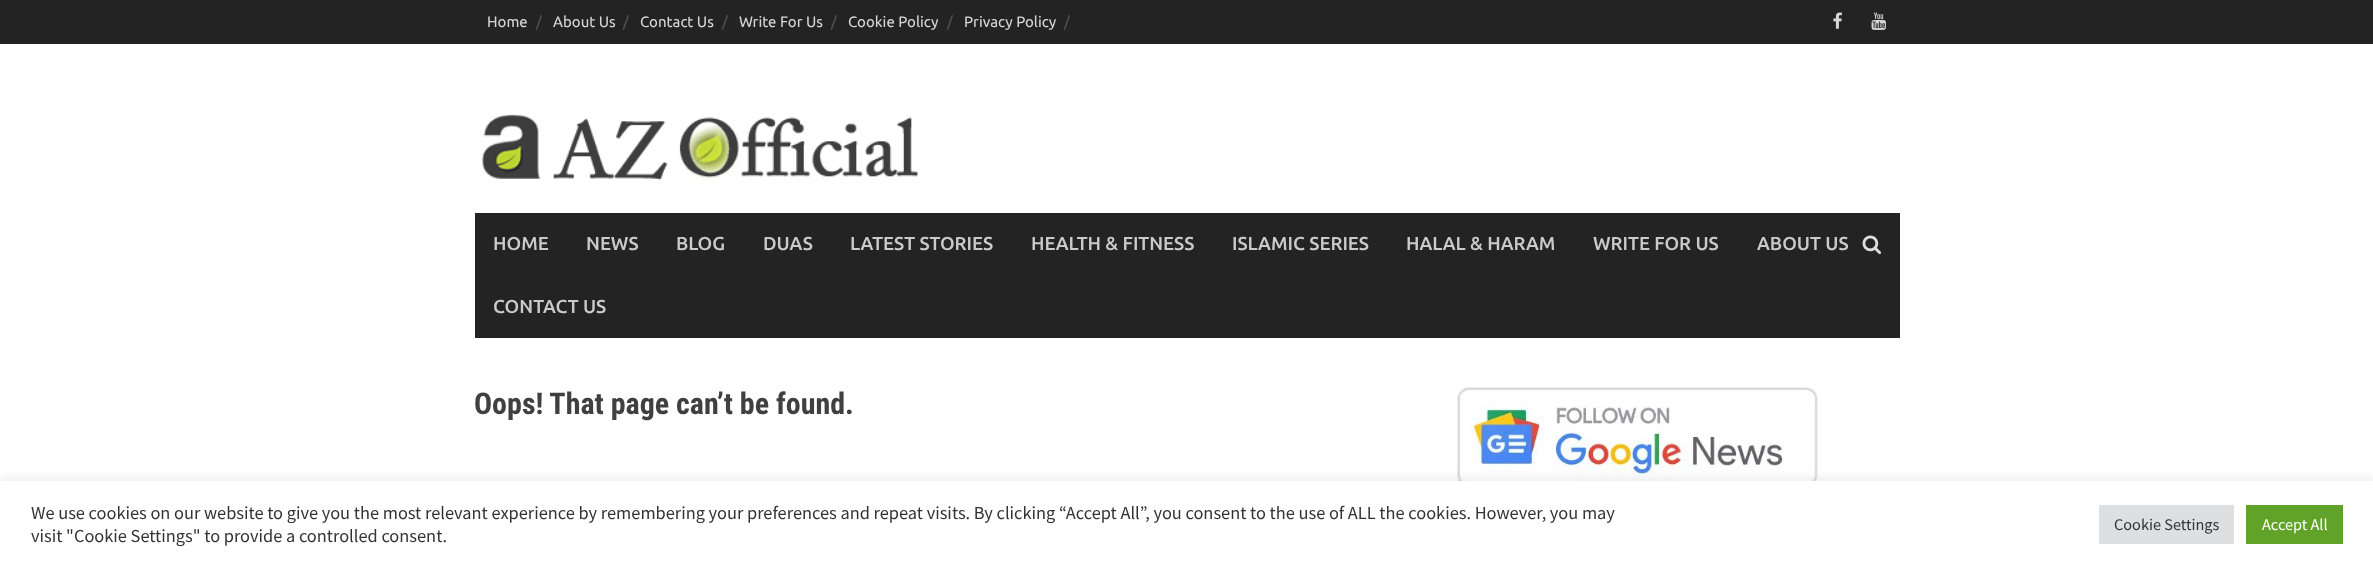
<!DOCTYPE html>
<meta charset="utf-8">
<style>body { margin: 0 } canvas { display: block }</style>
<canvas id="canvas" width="2373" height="567"></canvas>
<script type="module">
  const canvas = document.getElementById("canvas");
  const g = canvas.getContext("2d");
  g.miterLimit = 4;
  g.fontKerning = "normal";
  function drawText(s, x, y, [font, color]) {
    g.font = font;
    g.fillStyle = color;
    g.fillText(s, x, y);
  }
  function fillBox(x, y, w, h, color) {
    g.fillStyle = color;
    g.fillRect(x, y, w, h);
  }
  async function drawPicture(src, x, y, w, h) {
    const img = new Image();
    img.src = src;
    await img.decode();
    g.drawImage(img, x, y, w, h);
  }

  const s1 = ["15px Ubuntu", "#D7D7D7"];
  const s2 = ["15px Ubuntu", "#555555"];
  const s3 = ["500 18.75px Ubuntu", "#CACACA"];
  const s4 = ["bold 30px Roboto Condensed", "#404040"];
  const s5 = ["18.33px Source Sans Pro", "#333333"];
  const s6 = ["16.25px Source Sans Pro", "#333333"];
  const s7 = ["16.25px Source Sans Pro", "#FFFFFF"];

  fillBox(0, 0, 2373, 567, "#FFFFFF");
  fillBox(0, 0, 2373, 44, "#232323");
  drawText("Home", 487, 27, s1);
  drawText("/", 536, 27, s2);
  drawText("About Us", 553, 27, s1);
  drawText("/", 623, 27, s2);
  drawText("Contact Us", 640, 27, s1);
  drawText("/", 722, 27, s2);
  drawText("Write For Us", 739, 27, s1);
  drawText("/", 831, 27, s2);
  drawText("Cookie Policy", 848, 27, s1);
  drawText("/", 947, 27, s2);
  drawText("Privacy Policy", 964, 27, s1);
  drawText("/", 1064, 27, s2);
  await drawPicture("pic1.png", 1833, 12, 9, 17);
  await drawPicture("pic2.png", 1871, 12, 15, 18);
  await drawPicture("pic3.png", 482, 114, 436, 67);
  fillBox(475, 213, 1425, 125, "#232323");
  drawText("HOME", 493, 250, s3);
  drawText("NEWS", 586, 250, s3);
  drawText("BLOG", 676, 250, s3);
  drawText("DUAS", 763, 250, s3);
  drawText("LATEST STORIES", 850, 250, s3);
  drawText("HEALTH & FITNESS", 1031, 250, s3);
  drawText("ISLAMIC SERIES", 1232, 250, s3);
  drawText("HALAL & HARAM", 1406, 250, s3);
  drawText("WRITE FOR US", 1593, 250, s3);
  drawText("ABOUT US", 1757, 250, s3);
  drawText("CONTACT US", 493, 313, s3);
  await drawPicture("pic4.png", 1862, 235, 20, 20);
  drawText("Oops! That page can’t be found.", 474, 414, s4);
  await drawPicture("pic5.png", 1457, 387, 361, 94);
  g.fillStyle = "rgba(172, 171, 171, 0.3)";
  g.filter = "blur(6px)";
  g.beginPath();
  g.rect(0, 480, 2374, 86);
  g.fill();
  g.filter = "none";
  fillBox(0, 481, 2373, 86, "#FFFFFF");
  drawText("We use cookies on our website to give you the most relevant experience by remembering your preferences and repeat visits. By clicking “Accept All”, you consent to the use of ALL the cookies. However, you may", 31, 519, s5);
  drawText("visit \"Cookie Settings\" to provide a controlled consent.", 31, 542, s5);
  fillBox(2099, 505, 135, 39, "#DEDFE0");
  drawText("Cookie Settings", 2114, 530, s6);
  fillBox(2246, 505, 97, 39, "#61A229");
  drawText("Accept All", 2262, 530, s7);
</script>
